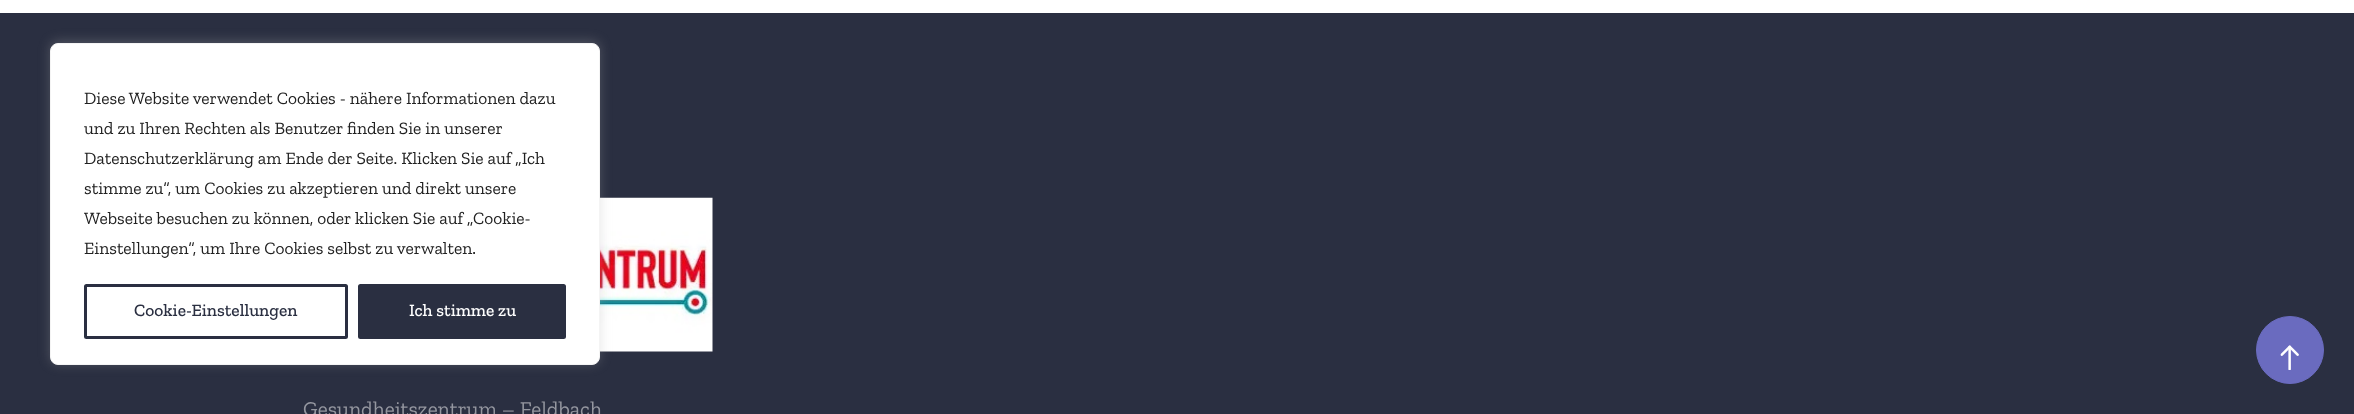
<!DOCTYPE html>
<meta charset="utf-8">
<style>body { margin: 0 } canvas { display: block }</style>
<canvas id="canvas" width="2354" height="414"></canvas>
<script type="module">
  const canvas = document.getElementById("canvas");
  const g = canvas.getContext("2d");
  g.miterLimit = 4;
  g.fontKerning = "normal";
  function drawText(s, x, y, [font, color]) {
    g.font = font;
    g.fillStyle = color;
    g.fillText(s, x, y);
  }
  function fillBox(x, y, w, h, color) {
    g.fillStyle = color;
    g.fillRect(x, y, w, h);
  }
  async function drawPicture(src, x, y, w, h) {
    const img = new Image();
    img.src = src;
    await img.decode();
    g.drawImage(img, x, y, w, h);
  }

  const s1 = ["17.5px Zilla Slab", "#212121"];
  const s2 = ["500 17.5px Zilla Slab", "#2A2F41"];
  const s3 = ["500 17.5px Zilla Slab", "#FFFFFF"];
  const s4 = ["21.25px Zilla Slab", "#9597A0"];

  fillBox(0, 0, 2354, 414, "#FFFFFF");
  fillBox(0, 13, 2354, 401, "#2A2F41");
  await drawPicture("pic2.png", 600, 197, 113, 155);
  g.fillStyle = "rgba(172, 171, 171, 0.3)";
  g.filter = "blur(6px)";
  g.beginPath();
  g.roundRect(50, 41, 550, 323, 8);
  g.fill();
  g.filter = "none";
  g.fillStyle = "#FFFFFF";
  g.beginPath();
  g.roundRect(50.5, 43.5, 549, 321, 7.5);
  g.fill();
  g.strokeStyle = "#F4F4F4";
  g.stroke();
  drawText("Diese Website verwendet Cookies - nähere Informationen dazu", 84, 104, s1);
  drawText("und zu Ihren Rechten als Benutzer finden Sie in unserer", 84, 134, s1);
  drawText("Datenschutzerklärung am Ende der Seite. Klicken Sie auf „Ich", 84, 164, s1);
  drawText("stimme zu“, um Cookies zu akzeptieren und direkt unsere", 84, 194, s1);
  drawText("Webseite besuchen zu können, oder klicken Sie auf „Cookie-", 84, 224, s1);
  drawText("Einstellungen“, um Ihre Cookies selbst zu verwalten.", 84, 254, s1);
  g.beginPath();
  g.roundRect(85.5, 285.5, 261, 52, 1);
  g.strokeStyle = "#2A2F41";
  g.lineWidth = 3;
  g.stroke();
  drawText("Cookie-Einstellungen", 134, 316, s2);
  g.beginPath();
  g.roundRect(359.5, 285.5, 205, 52, 1);
  g.fill();
  g.stroke();
  drawText("Ich stimme zu", 409, 316, s3);
  g.fillStyle = "#6A6BBF";
  g.beginPath();
  g.arc(2290, 350, 33.5, 0, Math.PI * 2);
  g.fill();
  g.strokeStyle = "#6A6BBF";
  g.lineWidth = 1;
  g.stroke();
  await drawPicture("pic1.png", 2280, 345, 19, 25);
  drawText("Gesundheitszentrum – Feldbach", 303, 416, s4);
</script>
